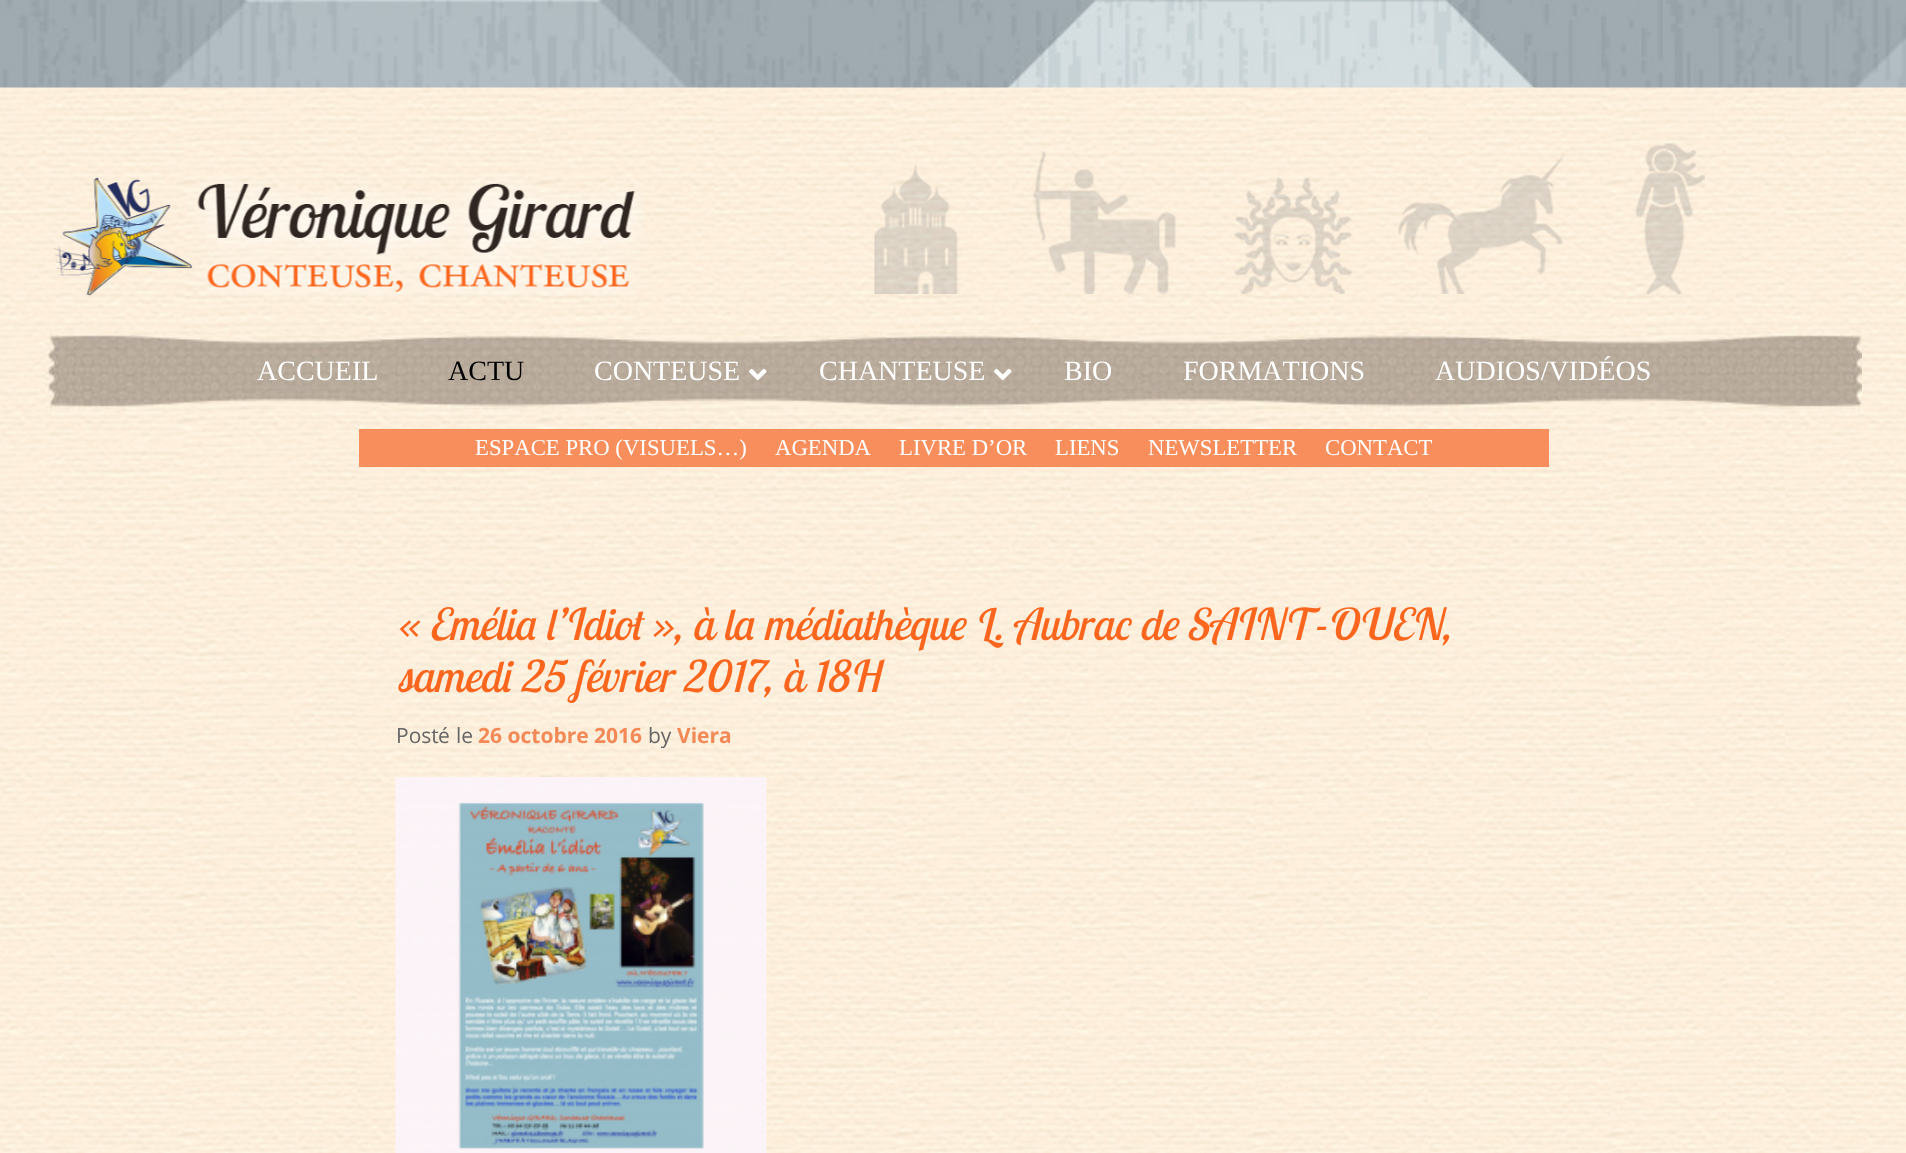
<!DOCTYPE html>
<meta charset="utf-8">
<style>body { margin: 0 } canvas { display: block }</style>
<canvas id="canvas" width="1906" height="1153"></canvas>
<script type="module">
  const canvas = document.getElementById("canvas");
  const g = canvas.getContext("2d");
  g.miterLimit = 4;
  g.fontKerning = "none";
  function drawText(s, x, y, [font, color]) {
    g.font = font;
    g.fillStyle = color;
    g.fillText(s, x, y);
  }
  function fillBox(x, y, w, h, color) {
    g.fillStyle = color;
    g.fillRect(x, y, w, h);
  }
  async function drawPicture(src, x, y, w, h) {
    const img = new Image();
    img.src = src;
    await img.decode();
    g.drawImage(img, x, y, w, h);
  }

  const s1 = ["28px Liberation Serif", "#FFFFFF"];
  const s2 = ["28px Liberation Serif", "#000000"];
  const s3 = ["22.75px Liberation Serif", "#FFFFFF"];
  const s4 = ["italic 43.75px Lobster Two", "#FB661E"];
  const s5 = ["21px Open Sans", "#666666"];
  const s6 = ["21px 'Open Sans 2'", "#666666"];
  const s7 = ["bold 21px Open Sans", "#F38957"];

  fillBox(0, 0, 1906, 1153, "#FFFFFF");
  await drawPicture("pic1.png", 0, 0, 1906, 88);
  await drawPicture("pic2.png", 0, 87, 1906, 1066);
  await drawPicture("pic3.png", 53, 177, 592, 119);
  await drawPicture("pic4.png", 874, 143, 831, 151);
  await drawPicture("pic5.png", 45, 331, 1817, 80);
  drawText("ACCUEIL", 257, 380, s1);
  drawText("ACTU", 448, 380, s2);
  drawText("CONTEUSE", 594, 380, s1);
  await drawPicture("pic6.png", 749, 368, 18, 13);
  drawText("CHANTEUSE", 819, 380, s1);
  await drawPicture("pic7.png", 994, 368, 18, 13);
  drawText("BIO", 1064, 380, s1);
  drawText("FORMATIONS", 1183, 380, s1);
  drawText("AUDIOS/VIDÉOS", 1435, 380, s1);
  fillBox(359, 429, 1190, 38, "#F98E5D");
  drawText("ESPACE PRO (VISUELS…)", 475, 455, s3);
  drawText("AGENDA", 775, 455, s3);
  drawText("LIVRE D’OR", 899, 455, s3);
  drawText("LIENS", 1055, 455, s3);
  drawText("NEWSLETTER", 1148, 455, s3);
  drawText("CONTACT", 1325, 455, s3);
  drawText("« Emélia l’Idiot », à la médiathèque L. Aubrac de SAINT-OUEN,", 396, 640, s4);
  drawText("samedi 25 février 2017, à 18H", 396, 692, s4);
  drawText("Post", 396, 743, s5);
  drawText("é", 438, 743, s6);
  drawText("le", 456, 743, s5);
  drawText("26 octobre 2016", 478, 743, s7);
  drawText("by", 648, 743, s5);
  drawText("Viera", 677, 743, s7);
  await drawPicture("pic8.png", 395, 777, 372, 376);
</script>
